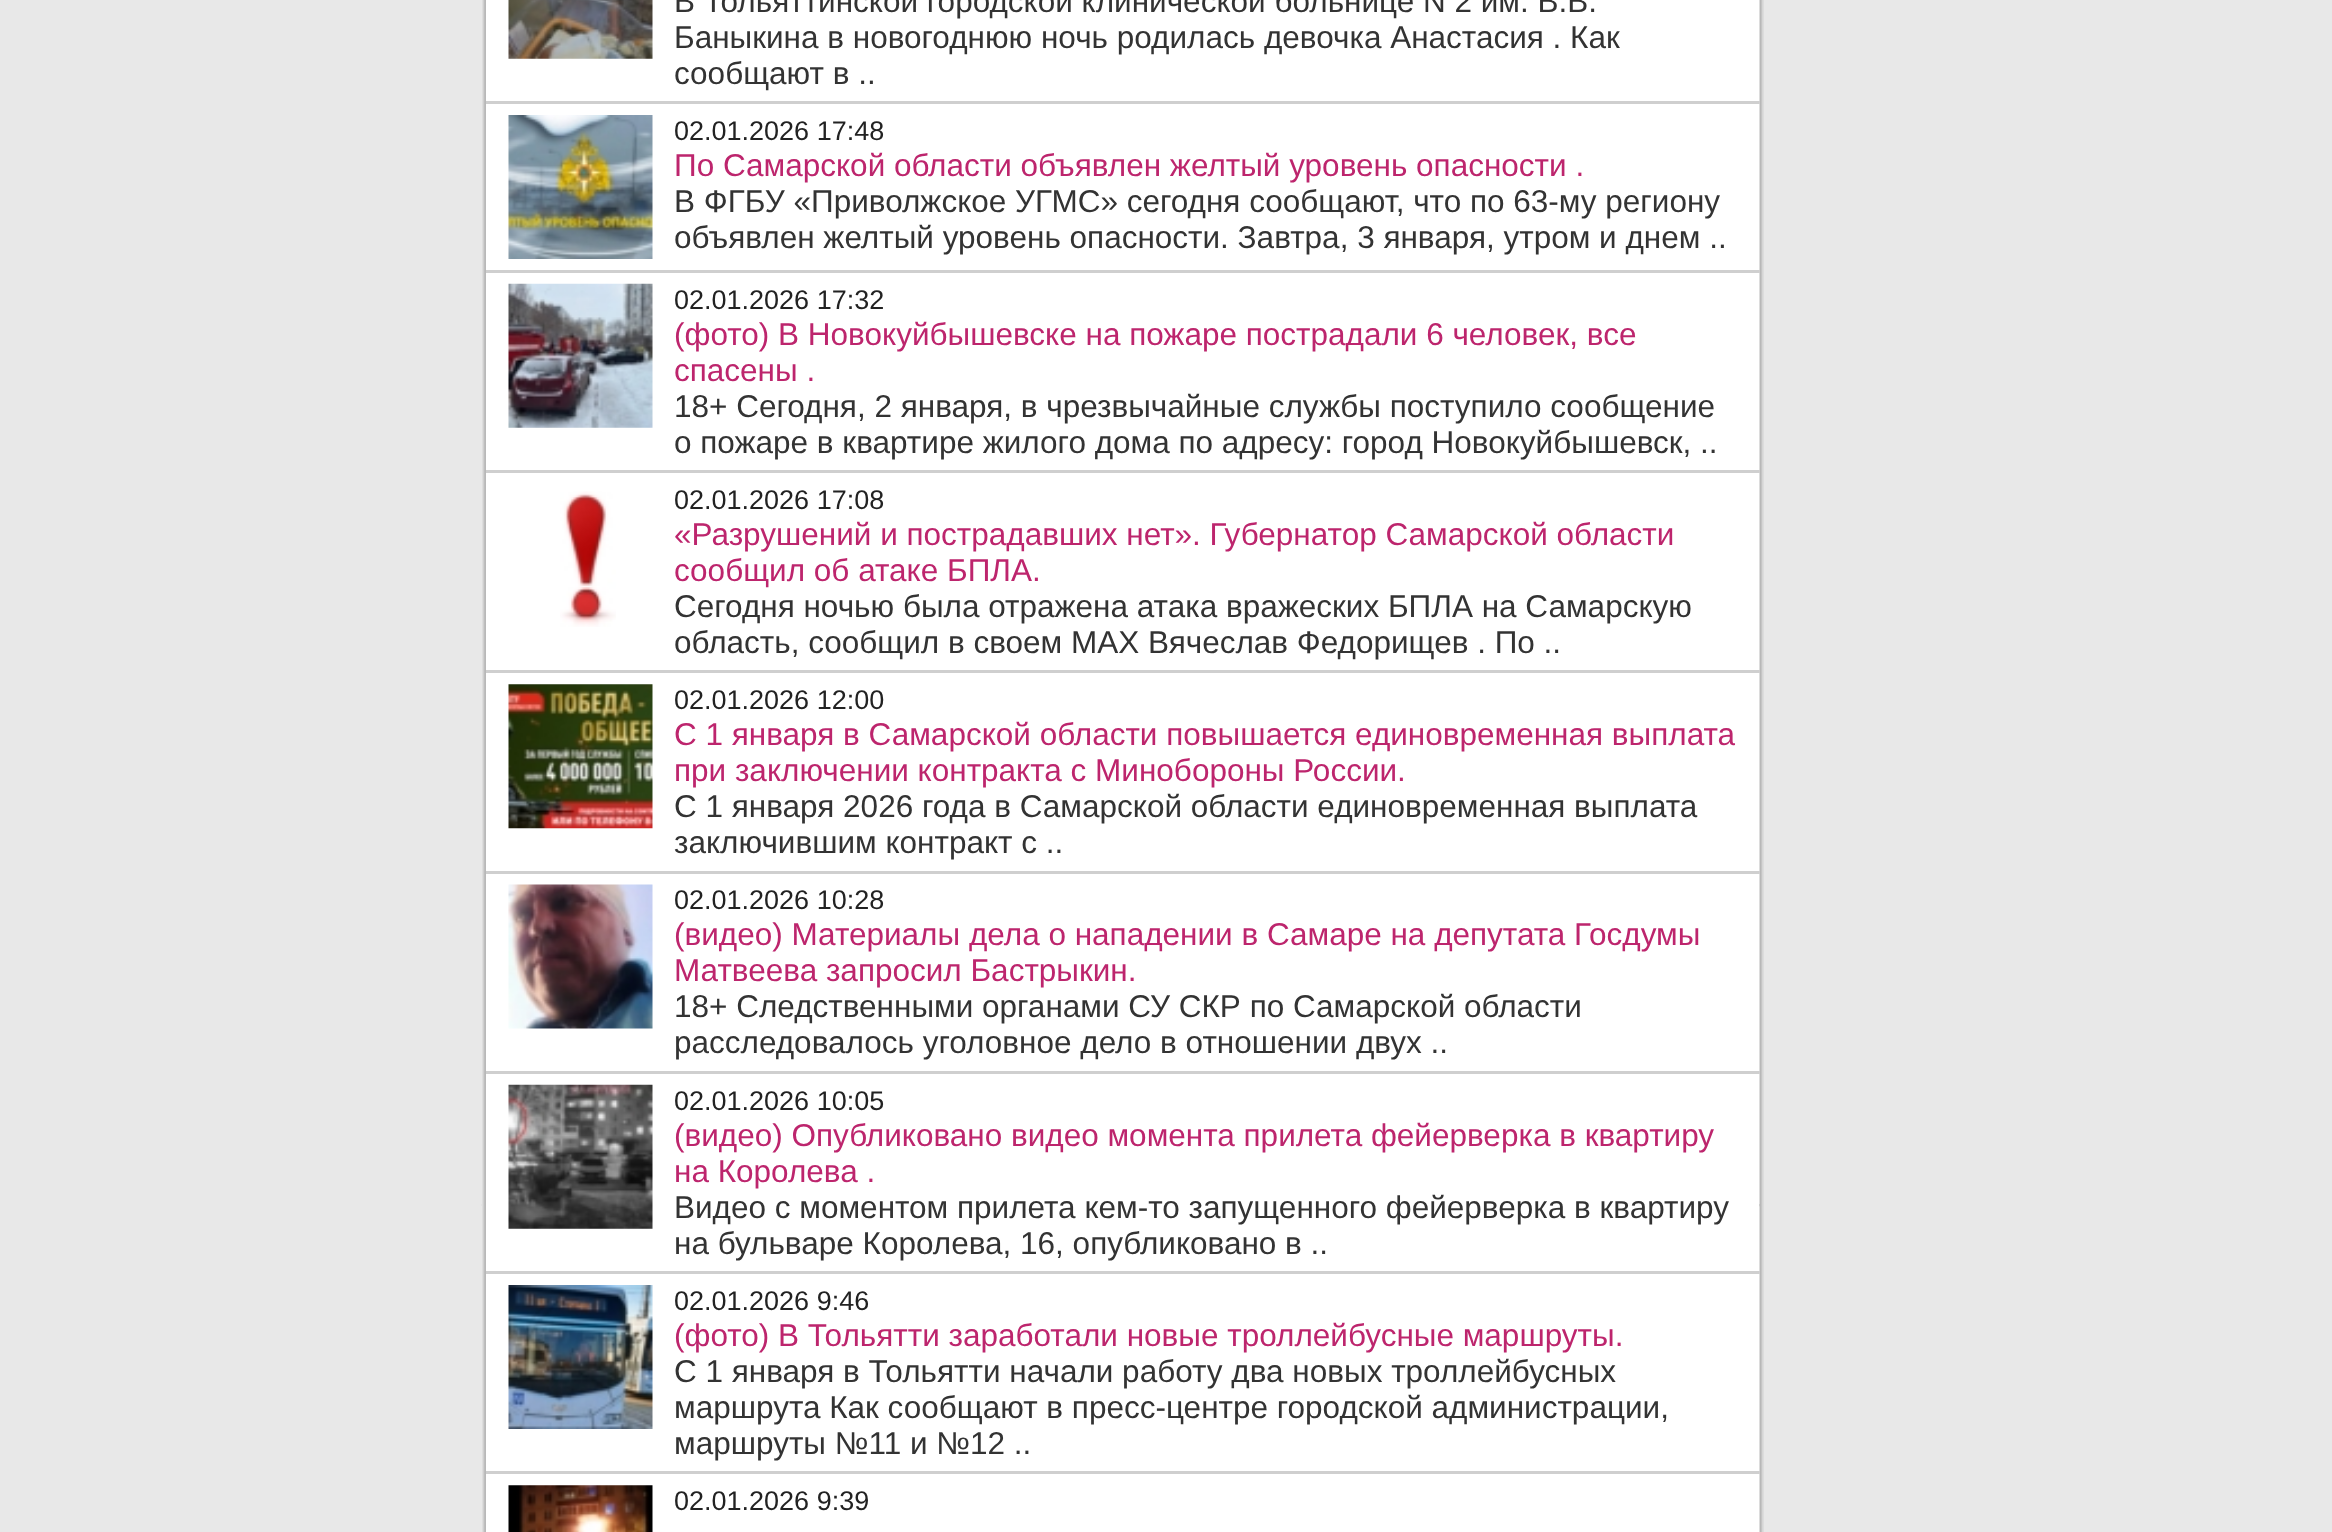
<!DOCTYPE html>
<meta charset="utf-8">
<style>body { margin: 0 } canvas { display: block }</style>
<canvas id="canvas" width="2332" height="1532"></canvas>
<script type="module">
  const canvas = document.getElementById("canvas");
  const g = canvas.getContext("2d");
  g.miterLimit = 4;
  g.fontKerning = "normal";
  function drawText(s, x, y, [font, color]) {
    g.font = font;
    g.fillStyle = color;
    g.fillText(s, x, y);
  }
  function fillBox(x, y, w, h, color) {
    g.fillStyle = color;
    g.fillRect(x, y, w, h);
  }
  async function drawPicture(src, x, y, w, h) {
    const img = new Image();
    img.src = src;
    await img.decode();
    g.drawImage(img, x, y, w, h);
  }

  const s1 = ["31.5px Liberation Sans", "#333333"];
  const s2 = ["27px Liberation Sans", "#222222"];
  const s3 = ["31.5px Liberation Sans", "#BD256D"];

  fillBox(0, 0, 2332, 1532, "#E8E8E8");
  fillBox(486, 0, 1274, 1532, "#FFFFFF");
  await drawPicture("pic1.png", 482, 0, 4, 1532);
  fillBox(481, 1204, 1, 2, "#E3E3E3");
  await drawPicture("pic2.png", 508, 0, 145, 59);
  drawText("В Тольяттинской городской клинической больнице N 2 им. В.В.", 674, 12, s1);
  drawText("Баныкина в новогоднюю ночь родилась девочка Анастасия . Как", 674, 48, s1);
  drawText("сообщают в ..", 674, 84, s1);
  fillBox(486, 101, 1274, 3, "#CFCFCF");
  await drawPicture("pic3.png", 508, 115, 145, 144);
  drawText("02.01.2026 17:48", 674, 140, s2);
  drawText("По Самарской области объявлен желтый уровень опасности .", 674, 176, s3);
  drawText("В ФГБУ «Приволжское УГМС» сегодня сообщают, что по 63-му региону", 674, 212, s1);
  drawText("объявлен желтый уровень опасности. Завтра, 3 января, утром и днем ..", 674, 248, s1);
  fillBox(486, 270, 1274, 3, "#CFCFCF");
  await drawPicture("pic4.png", 508, 283, 145, 145);
  drawText("02.01.2026 17:32", 674, 309, s2);
  drawText("(фото) В Новокуйбышевске на пожаре пострадали 6 человек, все", 674, 345, s3);
  drawText("спасены .", 674, 381, s3);
  drawText("18+ Сегодня, 2 января, в чрезвычайные службы поступило сообщение", 674, 417, s1);
  drawText("о пожаре в квартире жилого дома по адресу: город Новокуйбышевск, ..", 674, 453, s1);
  fillBox(486, 470, 1274, 3, "#CFCFCF");
  await drawPicture("pic5.png", 560, 491, 56, 136);
  drawText("02.01.2026 17:08", 674, 509, s2);
  drawText("«Разрушений и пострадавших нет». Губернатор Самарской области", 674, 545, s3);
  drawText("сообщил об атаке БПЛА.", 674, 581, s3);
  drawText("Сегодня ночью была отражена атака вражеских БПЛА на Самарскую", 674, 617, s1);
  drawText("область, сообщил в своем MAX Вячеслав Федорищев . По ..", 674, 653, s1);
  fillBox(486, 670, 1274, 3, "#CFCFCF");
  await drawPicture("pic6.png", 508, 684, 145, 145);
  drawText("02.01.2026 12:00", 674, 709, s2);
  drawText("С 1 января в Самарской области повышается единовременная выплата", 674, 745, s3);
  drawText("при заключении контракта с Минобороны России.", 674, 781, s3);
  drawText("С 1 января 2026 года в Самарской области единовременная выплата", 674, 817, s1);
  drawText("заключившим контракт с ..", 674, 853, s1);
  fillBox(486, 871, 1274, 3, "#CFCFCF");
  await drawPicture("pic7.png", 508, 884, 145, 145);
  drawText("02.01.2026 10:28", 674, 909, s2);
  drawText("(видео) Материалы дела о нападении в Самаре на депутата Госдумы", 674, 945, s3);
  drawText("Матвеева запросил Бастрыкин.", 674, 981, s3);
  drawText("18+ Следственными органами СУ СКР по Самарской области", 674, 1017, s1);
  drawText("расследовалось уголовное дело в отношении двух ..", 674, 1053, s1);
  fillBox(486, 1071, 1274, 3, "#CFCFCF");
  await drawPicture("pic8.png", 508, 1084, 145, 145);
  drawText("02.01.2026 10:05", 674, 1110, s2);
  drawText("(видео) Опубликовано видео момента прилета фейерверка в квартиру", 674, 1146, s3);
  drawText("на Королева .", 674, 1182, s3);
  drawText("Видео с моментом прилета кем-то запущенного фейерверка в квартиру", 674, 1218, s1);
  drawText("на бульваре Королева, 16, опубликовано в ..", 674, 1254, s1);
  fillBox(486, 1271, 1274, 3, "#CFCFCF");
  await drawPicture("pic9.png", 508, 1285, 145, 144);
  drawText("02.01.2026 9:46", 674, 1310, s2);
  drawText("(фото) В Тольятти заработали новые троллейбусные маршруты.", 674, 1346, s3);
  drawText("С 1 января в Тольятти начали работу два новых троллейбусных", 674, 1382, s1);
  drawText("маршрута Как сообщают в пресс-центре городской администрации,", 674, 1418, s1);
  drawText("маршруты №11 и №12 ..", 674, 1454, s1);
  fillBox(486, 1471, 1274, 3, "#CFCFCF");
  await drawPicture("pic10.png", 508, 1485, 145, 47);
  drawText("02.01.2026 9:39", 674, 1510, s2);
  await drawPicture("pic11.png", 1759, 0, 5, 1532);
  await drawPicture("pic12.png", 1759, 1204, 1, 3);
</script>
